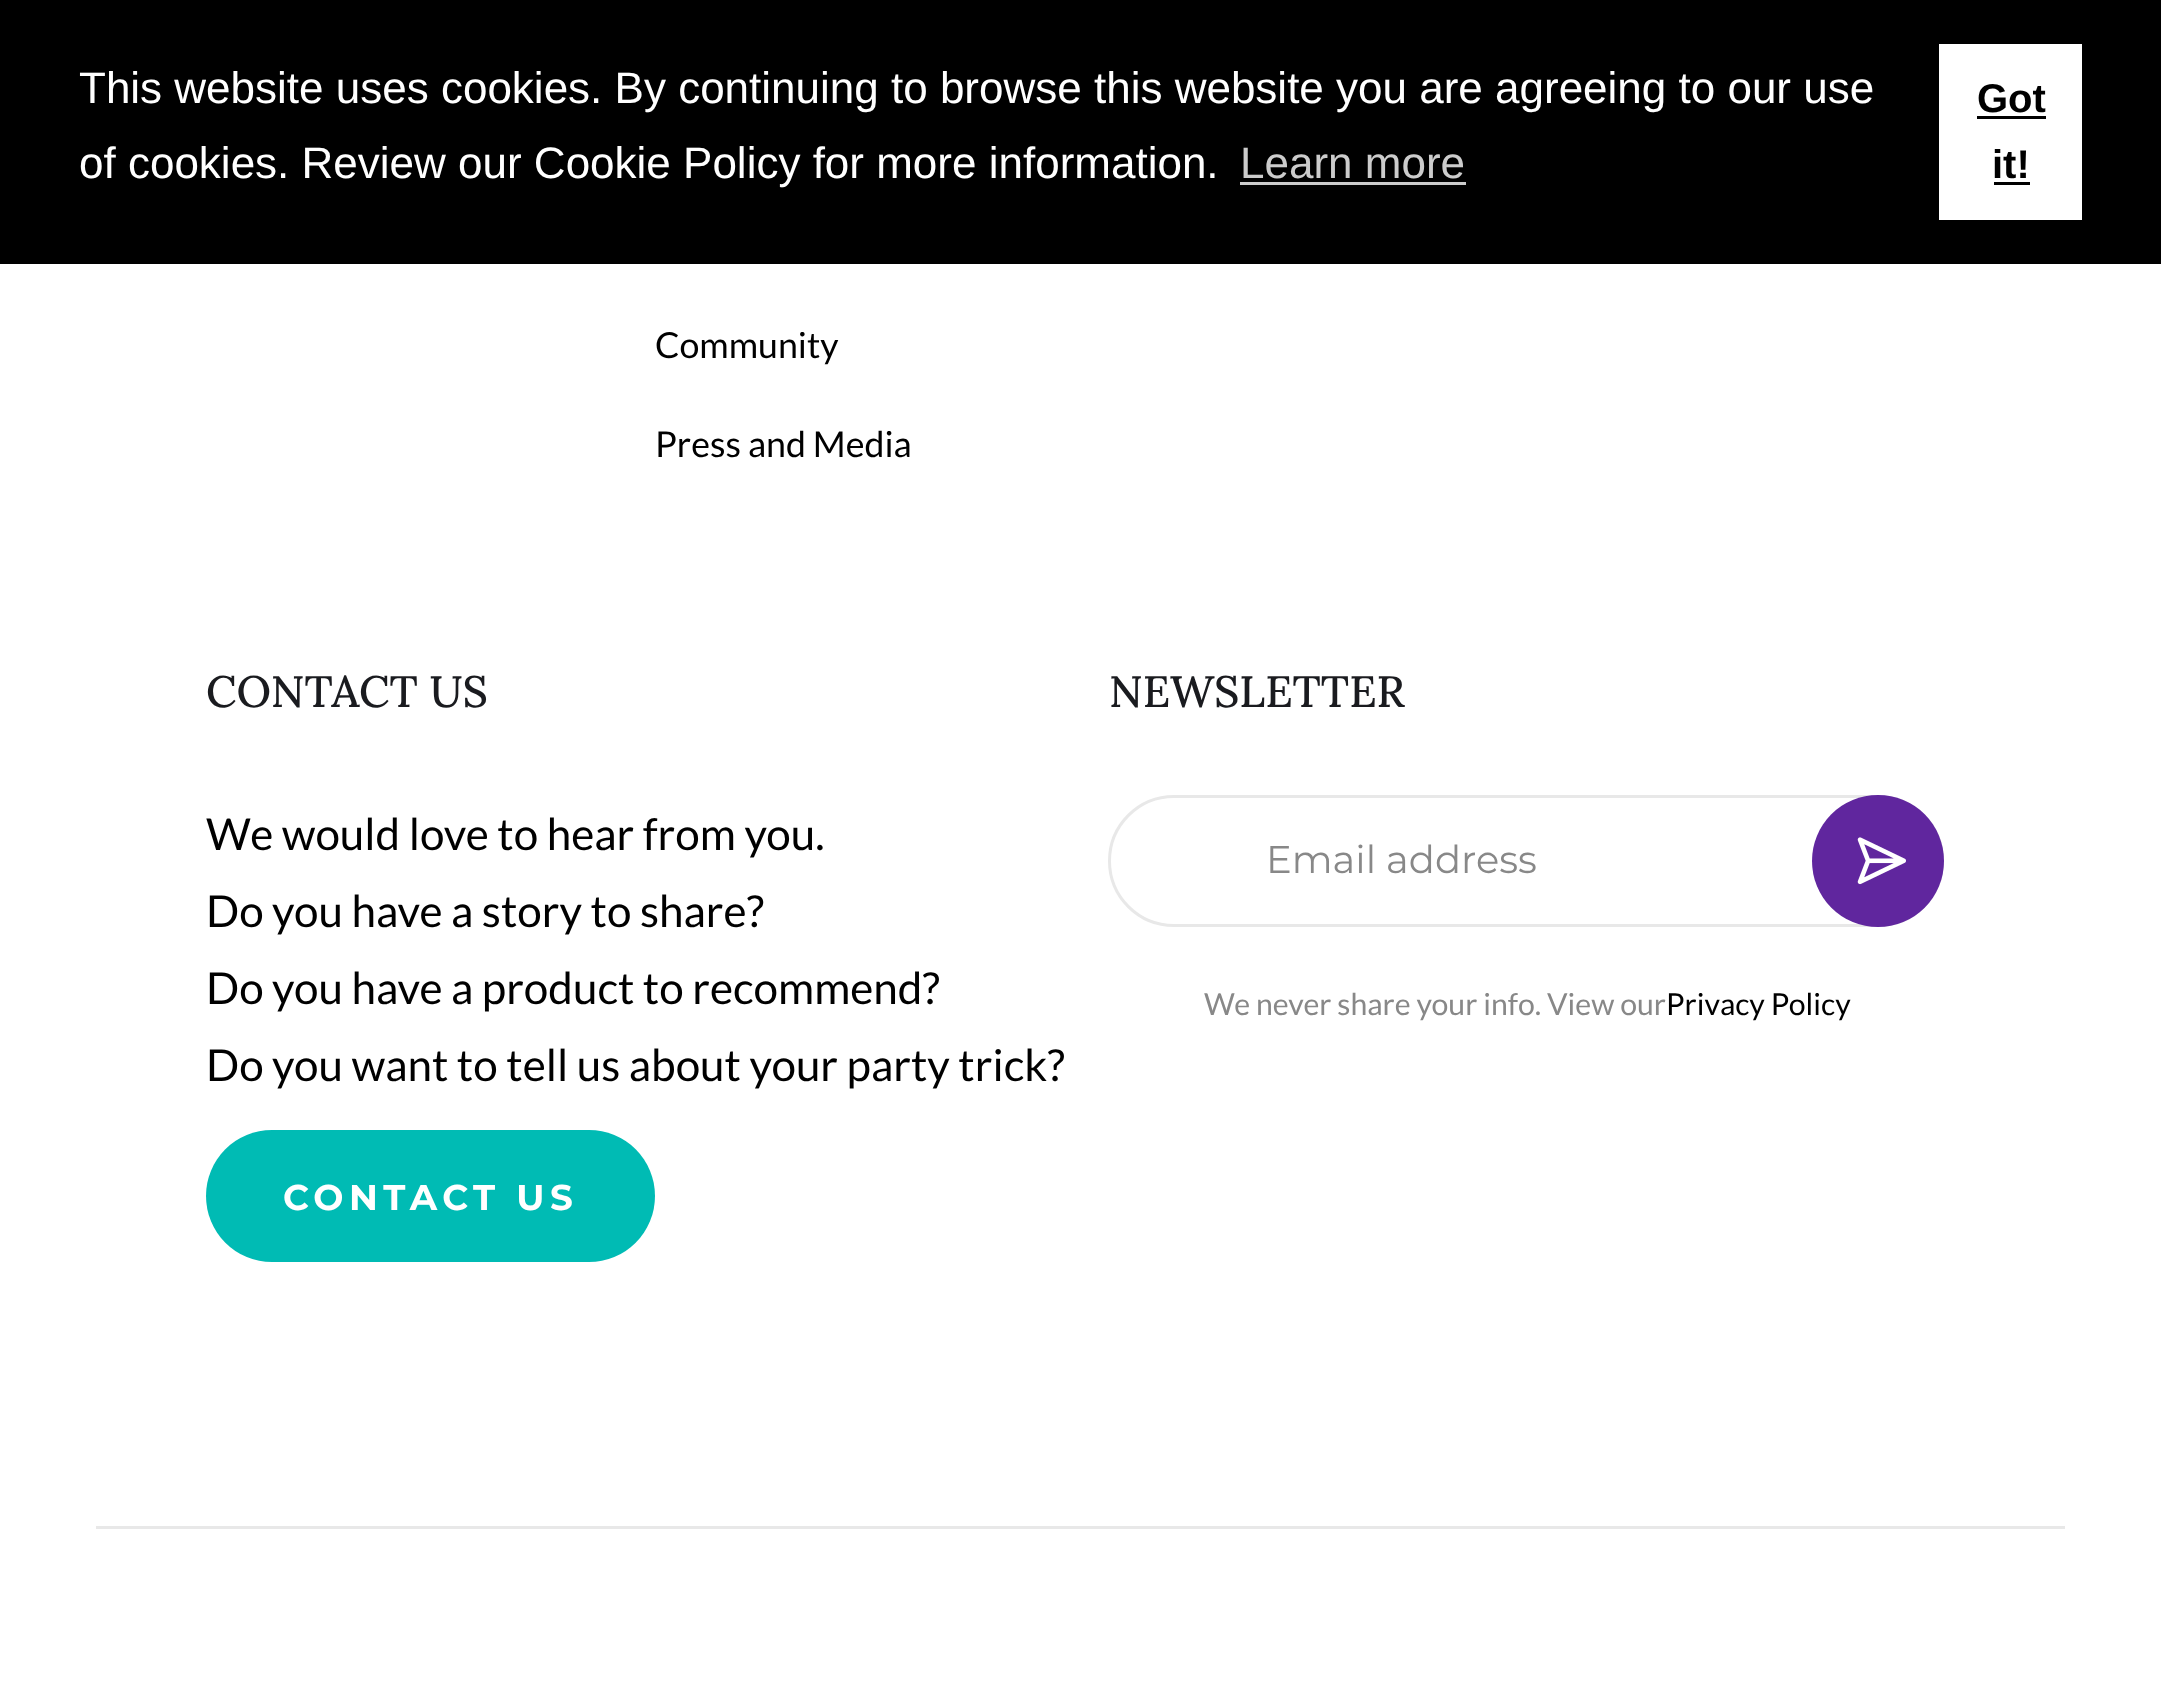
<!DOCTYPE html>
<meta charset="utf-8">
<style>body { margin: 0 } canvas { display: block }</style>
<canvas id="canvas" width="2161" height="1707"></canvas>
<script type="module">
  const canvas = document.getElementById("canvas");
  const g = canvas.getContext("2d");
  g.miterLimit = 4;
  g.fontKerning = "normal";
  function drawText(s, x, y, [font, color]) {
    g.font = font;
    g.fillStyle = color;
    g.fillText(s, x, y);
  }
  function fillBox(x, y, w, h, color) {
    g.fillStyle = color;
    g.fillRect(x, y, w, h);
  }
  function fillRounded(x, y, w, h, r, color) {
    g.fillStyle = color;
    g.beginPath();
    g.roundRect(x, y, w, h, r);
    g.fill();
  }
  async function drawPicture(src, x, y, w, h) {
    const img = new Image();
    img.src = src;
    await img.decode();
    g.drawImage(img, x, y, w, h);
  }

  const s1 = ["44px Liberation Sans", "#FFFFFF"];
  const s2 = ["44px Liberation Sans", "#CCCCCC"];
  const s3 = ["bold 40px Liberation Sans", "#000000"];
  const s4 = ["35.75px Lato", "#000000"];
  const s5 = ["500 44px Lora", "#1A1B1F"];
  const s6 = ["44px Lato", "#000000"];
  const s7 = ["bold 35.75px Montserrat", "#FFFFFF"];
  const s8 = ["38.5px Montserrat", "#888888"];
  const s9 = ["30.25px Lato", "#888888"];
  const s10 = ["30.25px Lato", "#000000"];

  fillBox(0, 0, 2161, 1707, "#FFFFFF");
  fillBox(0, 0, 2161, 264, "#000000");
  drawText("This website uses cookies. By continuing to browse this website you are agreeing to our use", 79, 103, s1);
  drawText("of cookies. Review our Cookie Policy for more information.", 79, 178, s1);
  drawText("Learn more", 1240, 178, s2);
  fillBox(1240, 182, 226, 3, "#CCCCCC");
  fillBox(1939, 44, 143, 176, "#FFFFFF");
  drawText("Got", 1977, 112, s3);
  fillBox(1977, 116, 69, 3, "#000000");
  drawText("it!", 1992, 178, s3);
  fillBox(1994, 182, 36, 3, "#000000");
  drawText("Community", 655, 358, s4);
  drawText("Press and Media", 655, 457, s4);
  drawText("CONTACT US", 206, 707, s5);
  drawText("We would love to hear from you.", 206, 850, s6);
  drawText("Do you have a story to share?", 206, 927, s6);
  drawText("Do you have a product to recommend?", 206, 1004, s6);
  drawText("Do you want to tell us about your party trick?", 206, 1081, s6);
  fillRounded(206, 1130, 449, 132, 66, "#00BBB4");
  g.letterSpacing = "5.5px";
  drawText("CONTACT US", 283, 1210, s7);
  g.letterSpacing = "0px";
  drawText("NEWSLETTER", 1109, 707, s5);
  g.beginPath();
  g.roundRect(1109.5, 796.5, 833, 129, 64.5);
  g.strokeStyle = "#E8E8E8";
  g.lineWidth = 3;
  g.stroke();
  drawText("Email address", 1266, 873, s8);
  g.fillStyle = "#60269E";
  g.beginPath();
  g.arc(1878, 861, 66, 0, Math.PI * 2);
  g.fill();
  await drawPicture("pic1.png", 1857, 837, 49, 48);
  drawText("We never share your info. View our", 1204, 1015, s9);
  drawText("Privacy Policy", 1666, 1015, s10);
  fillBox(96, 1526, 1969, 3, "#E8E8E8");
</script>
